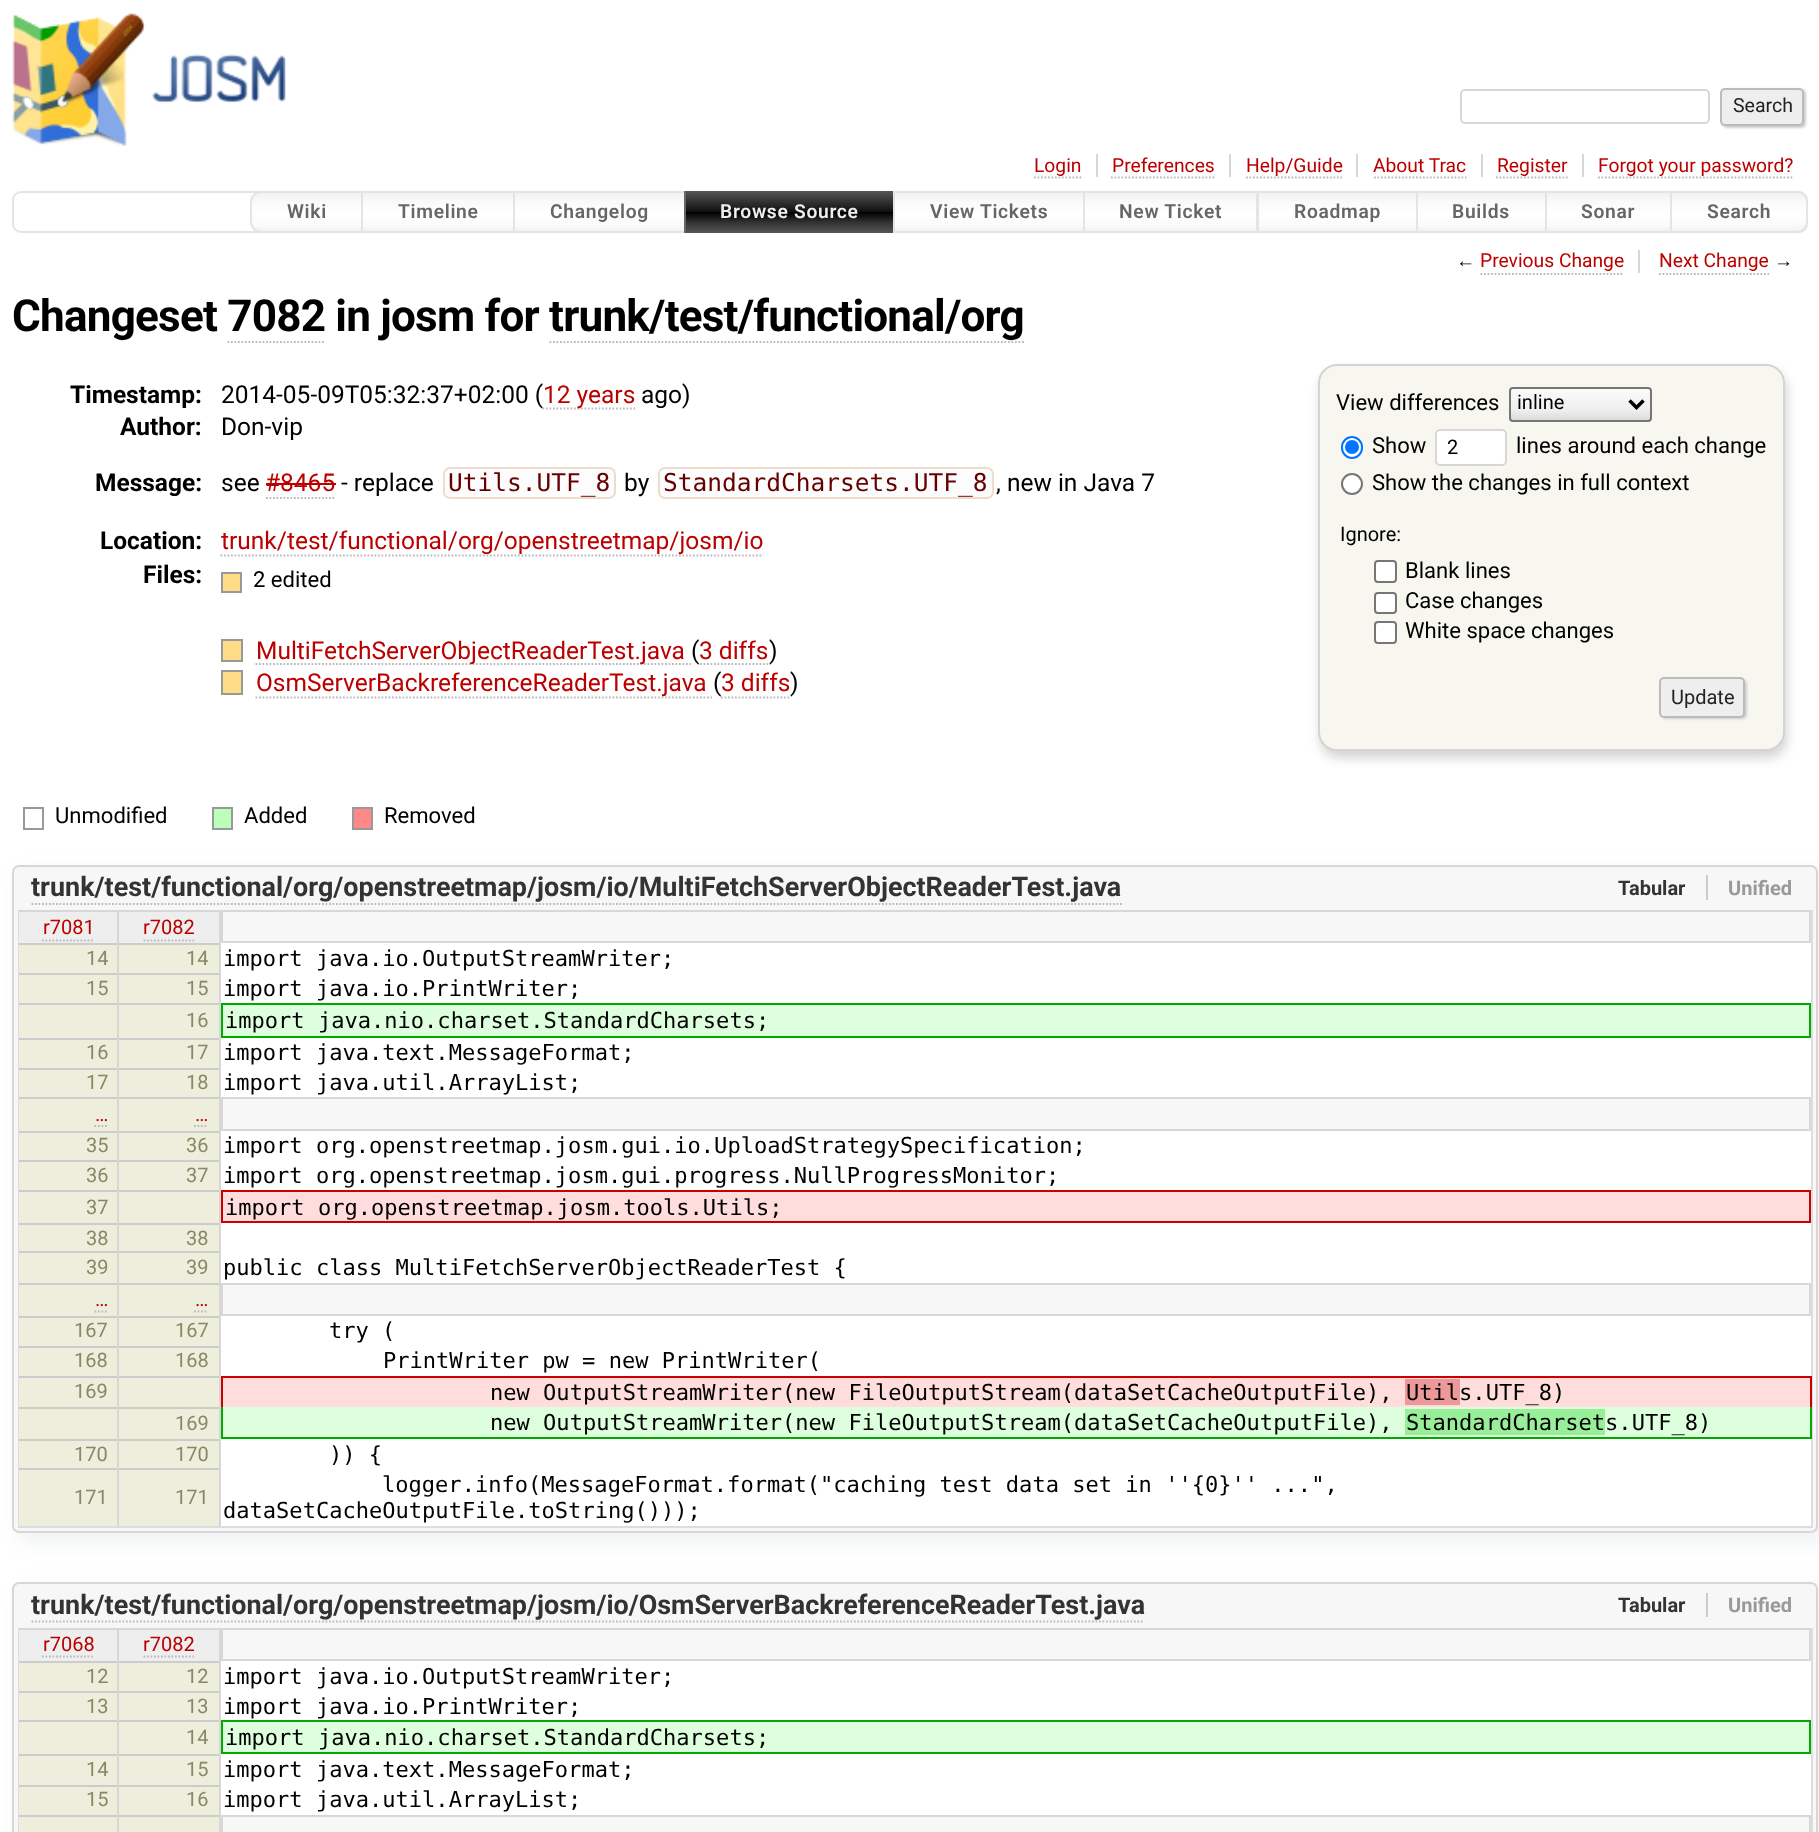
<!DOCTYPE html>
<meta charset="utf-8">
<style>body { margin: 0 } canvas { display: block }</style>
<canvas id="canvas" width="1819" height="1832"></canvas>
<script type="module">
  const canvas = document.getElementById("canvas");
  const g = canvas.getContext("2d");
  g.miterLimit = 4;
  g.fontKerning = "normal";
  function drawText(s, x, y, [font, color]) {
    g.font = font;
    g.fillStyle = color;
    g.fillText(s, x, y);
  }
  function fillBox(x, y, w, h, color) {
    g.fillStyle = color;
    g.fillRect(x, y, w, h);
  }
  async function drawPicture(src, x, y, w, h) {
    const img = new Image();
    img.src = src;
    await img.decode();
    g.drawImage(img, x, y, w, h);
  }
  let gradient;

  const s1 = ["19.5px Roboto", "#222222"];
  const s2 = ["19.25px Roboto", "#BB0000"];
  const s3 = ["600 19.25px Roboto", "#666666"];
  const s4 = ["600 19.25px Roboto", "#EEEEEE"];
  const s5 = ["19.25px Liberation Sans", "#000000"];
  const s6 = ["bold 44.1px Roboto", "#000000"];
  const s7 = ["bold 24.5px Roboto", "#000000"];
  const s8 = ["24.5px Roboto", "#000000"];
  const s9 = ["24.5px Roboto", "#BB0000"];
  const s10 = ["24.5px DejaVu Sans Mono", "#660000"];
  const s11 = ["22.05px Roboto", "#000000"];
  const s12 = ["20px Roboto", "#000000"];
  const s13 = ["20px Roboto", "#222222"];
  const s14 = ["bold 26.95px Roboto", "#333333"];
  const s15 = ["bold 20px Roboto", "#333333"];
  const s16 = ["bold 20px Roboto", "#999999"];
  const s17 = ["20px Roboto", "#BB0000"];
  const s18 = ["20px Roboto", "#888866"];
  const s19 = ["22.05px DejaVu Sans Mono", "#000000"];

  fillBox(0, 0, 1819, 1832, "#FFFFFF");
  await drawPicture("pic1.png", 12, 13, 274, 133);
  g.beginPath();
  g.roundRect(1461, 90, 248, 33, 4);
  g.strokeStyle = "#D7D7D7";
  g.lineWidth = 2;
  g.stroke();
  g.fillStyle = "#CCCCCC";
  g.filter = "blur(1px)";
  g.beginPath();
  g.roundRect(1722, 89, 84, 39, 5);
  g.fill();
  g.filter = "none";
  g.fillStyle = "#EEEEEE";
  g.beginPath();
  g.roundRect(1721, 89, 82, 36, 4);
  g.fill();
  g.strokeStyle = "#BBBBBB";
  g.stroke();
  drawText("Search", 1733, 112, s1);
  fillBox(1096, 154, 2, 23, "#D7D7D7");
  drawText("Login", 1034, 172, s2);
  g.beginPath();
  g.moveTo(1034, 177.5);
  g.lineTo(1081.5, 177.5);
  g.lineWidth = 1.8;
  g.setLineDash([1.75, 1.75]);
  g.stroke();
  fillBox(1229, 154, 2, 23, "#D7D7D7");
  drawText("Preferences", 1112, 172, s2);
  g.beginPath();
  g.moveTo(1111, 177.5);
  g.lineTo(1214.5, 177.5);
  g.stroke();
  fillBox(1356, 154, 2, 23, "#D7D7D7");
  drawText("Help/Guide", 1246, 172, s2);
  g.beginPath();
  g.moveTo(1246, 177.5);
  g.lineTo(1342, 177.5);
  g.stroke();
  fillBox(1481, 154, 2, 23, "#D7D7D7");
  drawText("About Trac", 1373, 172, s2);
  g.beginPath();
  g.moveTo(1374, 177.5);
  g.lineTo(1466.5, 177.5);
  g.stroke();
  fillBox(1582, 154, 2, 23, "#D7D7D7");
  drawText("Register", 1497, 172, s2);
  g.beginPath();
  g.moveTo(1496, 177.5);
  g.lineTo(1568, 177.5);
  g.stroke();
  g.beginPath();
  g.moveTo(1598, 177.5);
  g.lineTo(1794, 177.5);
  g.stroke();
  drawText("Forgot your password?", 1598, 172, s2);
  g.beginPath();
  g.roundRect(13, 192, 1794, 40, 8);
  g.strokeStyle = "#E4E4E4";
  g.lineWidth = 2;
  g.setLineDash([]);
  g.stroke();
  g.save();
  g.beginPath();
  g.roundRect(250, 191, 114, 42, [11, 0, 0, 11]);
  g.clip();
  gradient = g.createLinearGradient(307, 193, 307, 231);
  gradient.addColorStop(0, "#F2F2F2");
  gradient.addColorStop(0.25, "#FAFAFA");
  gradient.addColorStop(0.49, "#FEFEFE");
  gradient.addColorStop(0.51, "#FFFFFF");
  gradient.addColorStop(0.85, "#FAFAFA");
  gradient.addColorStop(1, "#F2F2F2");
  g.fillStyle = gradient;
  g.fillRect(250, 193, 111, 38);
  g.restore();
  g.beginPath();
  g.roundRect(251, 192, 112, 40, [10, 0, 0, 10]);
  g.stroke();
  g.letterSpacing = "0.7px";
  drawText("Wiki", 287, 218, s3);
  gradient = g.createLinearGradient(438, 193, 438, 231);
  gradient.addColorStop(0, "#F2F2F2");
  gradient.addColorStop(0.25, "#FAFAFA");
  gradient.addColorStop(0.49, "#FEFEFE");
  gradient.addColorStop(0.51, "#FFFFFF");
  gradient.addColorStop(0.85, "#FAFAFA");
  gradient.addColorStop(1, "#F2F2F2");
  g.fillStyle = gradient;
  g.fillRect(363, 193, 150, 38);
  g.strokeRect(362, 192, 152, 40);
  drawText("Timeline", 398, 218, s3);
  gradient = g.createLinearGradient(599, 193, 599, 231);
  gradient.addColorStop(0, "#F2F2F2");
  gradient.addColorStop(0.25, "#FAFAFA");
  gradient.addColorStop(0.49, "#FEFEFE");
  gradient.addColorStop(0.51, "#FFFFFF");
  gradient.addColorStop(0.85, "#FAFAFA");
  gradient.addColorStop(1, "#F2F2F2");
  g.fillStyle = gradient;
  g.fillRect(515, 193, 169, 38);
  g.strokeRect(514, 192, 171, 40);
  drawText("Changelog", 550, 218, s3);
  g.strokeStyle = "#666666";
  g.strokeRect(685, 192, 208, 40);
  gradient = g.createLinearGradient(789, 191, 789, 233);
  gradient.addColorStop(0, "#555555");
  gradient.addColorStop(0.25, "#333333");
  gradient.addColorStop(0.49, "#111111");
  gradient.addColorStop(0.51, "#000000");
  gradient.addColorStop(0.75, "#333333");
  gradient.addColorStop(1, "#555555");
  g.fillStyle = gradient;
  g.fillRect(686, 191, 207, 42);
  drawText("Browse Source", 720, 218, s4);
  gradient = g.createLinearGradient(989, 193, 989, 231);
  gradient.addColorStop(0, "#F2F2F2");
  gradient.addColorStop(0.25, "#FAFAFA");
  gradient.addColorStop(0.49, "#FEFEFE");
  gradient.addColorStop(0.51, "#FFFFFF");
  gradient.addColorStop(0.85, "#FAFAFA");
  gradient.addColorStop(1, "#F2F2F2");
  g.fillStyle = gradient;
  g.fillRect(895, 193, 188, 38);
  g.strokeStyle = "#E4E4E4";
  g.strokeRect(894, 192, 190, 40);
  drawText("View Tickets", 930, 218, s3);
  gradient = g.createLinearGradient(1171, 193, 1171, 231);
  gradient.addColorStop(0, "#F2F2F2");
  gradient.addColorStop(0.25, "#FAFAFA");
  gradient.addColorStop(0.49, "#FEFEFE");
  gradient.addColorStop(0.51, "#FFFFFF");
  gradient.addColorStop(0.85, "#FAFAFA");
  gradient.addColorStop(1, "#F2F2F2");
  g.fillStyle = gradient;
  g.fillRect(1085, 193, 171, 38);
  g.strokeRect(1084, 192, 173, 40);
  drawText("New Ticket", 1119, 218, s3);
  gradient = g.createLinearGradient(1337, 193, 1337, 231);
  gradient.addColorStop(0, "#F2F2F2");
  gradient.addColorStop(0.25, "#FAFAFA");
  gradient.addColorStop(0.49, "#FEFEFE");
  gradient.addColorStop(0.51, "#FFFFFF");
  gradient.addColorStop(0.85, "#FAFAFA");
  gradient.addColorStop(1, "#F2F2F2");
  g.fillStyle = gradient;
  g.fillRect(1259, 193, 157, 38);
  g.strokeRect(1258, 192, 159, 40);
  drawText("Roadmap", 1294, 218, s3);
  gradient = g.createLinearGradient(1481, 193, 1481, 231);
  gradient.addColorStop(0, "#F2F2F2");
  gradient.addColorStop(0.25, "#FAFAFA");
  gradient.addColorStop(0.49, "#FEFEFE");
  gradient.addColorStop(0.51, "#FFFFFF");
  gradient.addColorStop(0.85, "#FAFAFA");
  gradient.addColorStop(1, "#F2F2F2");
  g.fillStyle = gradient;
  g.fillRect(1418, 193, 127, 38);
  g.strokeRect(1417, 192, 129, 40);
  drawText("Builds", 1452, 218, s3);
  gradient = g.createLinearGradient(1609, 193, 1609, 231);
  gradient.addColorStop(0, "#F2F2F2");
  gradient.addColorStop(0.25, "#FAFAFA");
  gradient.addColorStop(0.49, "#FEFEFE");
  gradient.addColorStop(0.51, "#FFFFFF");
  gradient.addColorStop(0.85, "#FAFAFA");
  gradient.addColorStop(1, "#F2F2F2");
  g.fillStyle = gradient;
  g.fillRect(1547, 193, 123, 38);
  g.strokeRect(1546, 192, 126, 40);
  drawText("Sonar", 1581, 218, s3);
  g.save();
  g.beginPath();
  g.roundRect(1670, 191, 138, 42, [0, 11, 11, 0]);
  g.clip();
  gradient = g.createLinearGradient(1739, 193, 1739, 231);
  gradient.addColorStop(0, "#F2F2F2");
  gradient.addColorStop(0.25, "#FAFAFA");
  gradient.addColorStop(0.49, "#FEFEFE");
  gradient.addColorStop(0.51, "#FFFFFF");
  gradient.addColorStop(0.85, "#FAFAFA");
  gradient.addColorStop(1, "#F2F2F2");
  g.fillStyle = gradient;
  g.fillRect(1672, 193, 136, 38);
  g.restore();
  g.beginPath();
  g.roundRect(1671, 192, 136, 40, [0, 10, 10, 0]);
  g.stroke();
  drawText("Search", 1707, 218, s3);
  fillBox(1638, 250, 2, 23, "#D7D7D7");
  g.letterSpacing = "0px";
  drawText("←", 1456, 267, s5);
  drawText("Previous Change", 1480, 267, s2);
  g.beginPath();
  g.moveTo(1480.5, 274);
  g.lineTo(1624, 274);
  g.strokeStyle = "#BBBBBB";
  g.lineWidth = 1.8;
  g.setLineDash([1.75, 1.75]);
  g.stroke();
  drawText("Next Change", 1659, 267, s2);
  g.beginPath();
  g.moveTo(1659, 274);
  g.lineTo(1769, 274);
  g.stroke();
  drawText("→", 1774, 267, s5);
  g.letterSpacing = "-0.8px";
  drawText("Changeset 7082 in josm for trunk/test/functional/org", 12, 331, s6);
  g.beginPath();
  g.moveTo(227.5, 342);
  g.lineTo(325.5, 342);
  g.stroke();
  g.beginPath();
  g.moveTo(549.5, 342);
  g.lineTo(1024, 342);
  g.stroke();
  g.letterSpacing = "0px";
  drawText("Timestamp:", 70, 403, s7);
  drawText("2014-05-09T05:32:37+02:00 (", 221, 403, s8);
  g.beginPath();
  g.moveTo(542.5, 408.5);
  g.lineTo(635, 408.5);
  g.stroke();
  drawText("12 years", 543, 403, s9);
  drawText("ago)", 641, 403, s8);
  drawText("Author:", 120, 435, s7);
  drawText("Don-vip", 221, 435, s8);
  drawText("Message:", 95, 491, s7);
  drawText("see", 221, 491, s8);
  drawText("#8465", 265, 491, s9);
  g.beginPath();
  g.moveTo(266, 498);
  g.lineTo(336, 498);
  g.stroke();
  fillBox(266, 483, 70, 2, "#BB0000");
  drawText("- replace", 341, 491, s8);
  g.fillStyle = "#FCFCFC";
  g.beginPath();
  g.roundRect(444, 468, 171, 30, 6);
  g.fill();
  g.strokeStyle = "#EEDDCC";
  g.lineWidth = 2;
  g.setLineDash([]);
  g.stroke();
  drawText("Utils.UTF_8", 448, 491, s10);
  drawText("by", 624, 491, s8);
  g.fillStyle = "#FCFCFC";
  g.beginPath();
  g.roundRect(659, 468, 334, 30, 6);
  g.fill();
  g.stroke();
  drawText("StandardCharsets.UTF_8", 663, 491, s10);
  drawText(", new in Java 7", 996, 491, s8);
  drawText("Location:", 100, 549, s7);
  g.beginPath();
  g.moveTo(220.5, 555.5);
  g.lineTo(763, 555.5);
  g.strokeStyle = "#BBBBBB";
  g.lineWidth = 1.8;
  g.setLineDash([1.75, 1.75]);
  g.stroke();
  drawText("trunk/test/functional/org/openstreetmap/josm/io", 221, 549, s9);
  drawText("Files:", 143, 583, s7);
  g.fillStyle = "#FFDD88";
  g.beginPath();
  g.rect(222, 573, 19, 19);
  g.fill();
  g.strokeStyle = "#999999";
  g.lineWidth = 2;
  g.setLineDash([]);
  g.stroke();
  drawText("2 edited", 253, 587, s11);
  g.fillStyle = "#FFDD88";
  g.beginPath();
  g.rect(222, 640, 20, 21);
  g.fill();
  g.stroke();
  g.beginPath();
  g.moveTo(255.5, 664);
  g.lineTo(691, 664);
  g.strokeStyle = "#BBBBBB";
  g.lineWidth = 1.8;
  g.setLineDash([1.75, 1.75]);
  g.stroke();
  drawText("MultiFetchServerObjectReaderTest.java", 256, 659, s9);
  drawText("(", 691, 659, s8);
  drawText("3 diffs", 699, 659, s9);
  g.beginPath();
  g.moveTo(700, 664);
  g.lineTo(768, 664);
  g.stroke();
  drawText(")", 769, 659, s8);
  g.fillStyle = "#FFDD88";
  g.beginPath();
  g.rect(222, 671, 20, 23);
  g.fill();
  g.strokeStyle = "#999999";
  g.lineWidth = 2;
  g.setLineDash([]);
  g.stroke();
  g.beginPath();
  g.moveTo(255.5, 697.5);
  g.lineTo(712, 697.5);
  g.strokeStyle = "#BBBBBB";
  g.lineWidth = 1.8;
  g.setLineDash([1.75, 1.75]);
  g.stroke();
  drawText("OsmServerBackreferenceReaderTest.java", 256, 691, s9);
  drawText("(", 713, 691, s8);
  drawText("3 diffs", 721, 691, s9);
  g.beginPath();
  g.moveTo(721, 697.5);
  g.lineTo(791, 697.5);
  g.stroke();
  drawText(")", 790, 691, s8);
  g.fillStyle = "#D4D4D4";
  g.filter = "blur(5.5px)";
  g.beginPath();
  g.roundRect(1320, 371, 467, 387, 19);
  g.fill();
  g.filter = "none";
  g.fillStyle = "#F7F7F0";
  g.beginPath();
  g.roundRect(1319, 365, 465, 385, 18);
  g.fill();
  g.strokeStyle = "#D4D4D4";
  g.lineWidth = 2;
  g.setLineDash([]);
  g.stroke();
  drawText("View differences", 1336, 410, s11);
  g.save();
  g.beginPath();
  g.roundRect(1509, 387, 143, 35, 4);
  g.clip();
  gradient = g.createLinearGradient(1580, 420, 1580, 389);
  gradient.addColorStop(0, "#DBDBDB");
  gradient.addColorStop(0.3, "#EEEEEE");
  gradient.addColorStop(1, "#FBFBFB");
  g.fillStyle = gradient;
  g.fillRect(1509, 389, 143, 31);
  g.restore();
  g.beginPath();
  g.roundRect(1510, 388, 141, 33, 3);
  g.strokeStyle = "#767676";
  g.stroke();
  g.beginPath();
  g.moveTo(1629.5, 400.5);
  g.lineTo(1636.5, 407.5);
  g.lineTo(1643.5, 400.5);
  g.strokeStyle = "#000000";
  g.lineWidth = 3.5;
  g.stroke();
  drawText("inline", 1517, 409, s12);
  g.fillStyle = "#FFFFFF";
  g.beginPath();
  g.roundRect(1342, 437, 20, 21, 10);
  g.fill();
  g.strokeStyle = "#0075FF";
  g.lineWidth = 2;
  g.stroke();
  g.fillStyle = "#0075FF";
  g.beginPath();
  g.arc(1352, 447, 7, 0, Math.PI * 2);
  g.fill();
  drawText("Show", 1372, 453, s11);
  g.fillStyle = "#FFFFFF";
  g.beginPath();
  g.roundRect(1436, 430, 70, 35, 4);
  g.fill();
  g.strokeStyle = "#D7D7D7";
  g.stroke();
  drawText("2", 1447, 454, s12);
  drawText("lines around each change", 1516, 453, s11);
  g.fillStyle = "#FFFFFF";
  g.beginPath();
  g.arc(1352, 484, 10, 0, Math.PI * 2);
  g.fill();
  g.strokeStyle = "#767676";
  g.stroke();
  drawText("Show the changes in full context", 1372, 490, s11);
  drawText("Ignore:", 1340, 541, s12);
  g.fillStyle = "#FFFFFF";
  g.beginPath();
  g.roundRect(1375, 561, 21, 21, 3);
  g.fill();
  g.stroke();
  drawText("Blank lines", 1405, 578, s11);
  g.fillStyle = "#FFFFFF";
  g.beginPath();
  g.roundRect(1375, 593, 21, 20, 3);
  g.fill();
  g.stroke();
  drawText("Case changes", 1405, 608, s11);
  g.fillStyle = "#FFFFFF";
  g.beginPath();
  g.roundRect(1375, 622, 21, 21, 3);
  g.fill();
  g.stroke();
  drawText("White space changes", 1405, 638, s11);
  g.fillStyle = "#CCCCCC";
  g.filter = "blur(1px)";
  g.beginPath();
  g.roundRect(1661, 679, 86, 40, 5);
  g.fill();
  g.filter = "none";
  g.fillStyle = "#EEEEEE";
  g.beginPath();
  g.roundRect(1660, 678, 84, 39, 4);
  g.fill();
  g.strokeStyle = "#BBBBBB";
  g.stroke();
  drawText("Update", 1671, 704, s13);
  g.strokeStyle = "#999999";
  g.strokeRect(24, 808, 19, 21);
  drawText("Unmodified", 55, 823, s11);
  g.fillStyle = "#BBFFBB";
  g.beginPath();
  g.rect(213, 808, 19, 21);
  g.fill();
  g.stroke();
  drawText("Added", 244, 823, s11);
  g.fillStyle = "#FF8888";
  g.beginPath();
  g.rect(353, 808, 19, 21);
  g.fill();
  g.stroke();
  drawText("Removed", 384, 823, s11);
  g.fillStyle = "rgba(210, 215, 220, 0.3)";
  g.filter = "blur(9px)";
  g.beginPath();
  g.roundRect(18, 870, 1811, 674, 11);
  g.fill();
  g.filter = "none";
  g.fillStyle = "#F7F7F7";
  g.beginPath();
  g.roundRect(13, 866, 1804, 666, 6);
  g.fill();
  g.strokeStyle = "#D7D7D7";
  g.stroke();
  drawText("trunk/test/functional/org/openstreetmap/josm/io/MultiFetchServerObjectReaderTest.java", 31, 896, s14);
  g.beginPath();
  g.moveTo(31.5, 904);
  g.lineTo(1122, 904);
  g.strokeStyle = "#BBBBBB";
  g.lineWidth = 1.8;
  g.setLineDash([1.75, 1.75]);
  g.stroke();
  drawText("Tabular", 1618, 895, s15);
  drawText("Unified", 1728, 895, s16);
  fillBox(1706, 875, 2, 25, "#CCCCCC");
  fillBox(1811, 910, 2, 618, "#DDDDDD");
  fillBox(18, 1526, 1795, 2, "#DDDDDD");
  fillBox(18, 910, 2, 618, "#DDDDDD");
  fillBox(19, 912, 98, 31, "#EEEEEE");
  fillBox(19, 910, 202, 2, "#D7D7D7");
  fillBox(117, 910, 2, 33, "#D7D7D7");
  drawText("r7081", 43, 934, s17);
  g.beginPath();
  g.moveTo(42, 940.5);
  g.lineTo(94.5, 940.5);
  g.stroke();
  fillBox(119, 912, 100, 31, "#EEEEEE");
  fillBox(219, 910, 2, 33, "#D7D7D7");
  drawText("r7082", 143, 934, s17);
  g.beginPath();
  g.moveTo(143.5, 940.5);
  g.lineTo(194, 940.5);
  g.stroke();
  g.strokeStyle = "#D7D7D7";
  g.lineWidth = 2;
  g.setLineDash([]);
  g.strokeRect(222, 911, 1588, 31);
  fillBox(19, 945, 98, 28, "#EEEEDD");
  fillBox(19, 943, 202, 2, "#CCCCCC");
  fillBox(117, 943, 2, 30, "#D7D7D7");
  drawText("14", 86, 965, s18);
  fillBox(119, 945, 100, 28, "#EEEEDD");
  fillBox(219, 943, 2, 30, "#D7D7D7");
  drawText("14", 186, 965, s18);
  fillBox(221, 943, 1590, 60, "#FFFFFF");
  drawText("import java.io.OutputStreamWriter;", 223, 966, s19);
  fillBox(19, 975, 98, 28, "#EEEEDD");
  fillBox(19, 973, 202, 2, "#CCCCCC");
  fillBox(117, 973, 2, 30, "#D7D7D7");
  drawText("15", 86, 995, s18);
  fillBox(119, 975, 100, 28, "#EEEEDD");
  fillBox(219, 973, 2, 30, "#D7D7D7");
  drawText("15", 186, 995, s18);
  drawText("import java.io.PrintWriter;", 223, 996, s19);
  fillBox(19, 1005, 98, 33, "#EEEEDD");
  fillBox(19, 1003, 202, 2, "#CCCCCC");
  fillBox(117, 1003, 2, 35, "#D7D7D7");
  g.fillStyle = "#DDFFDD";
  g.beginPath();
  g.rect(222, 1004, 1588, 33);
  g.fill();
  g.strokeStyle = "#00AA00";
  g.stroke();
  drawText("import java.nio.charset.StandardCharsets;", 225, 1028, s19);
  fillBox(119, 1005, 100, 33, "#EEEEDD");
  fillBox(219, 1003, 2, 35, "#D7D7D7");
  drawText("16", 186, 1027, s18);
  fillBox(19, 1040, 98, 28, "#EEEEDD");
  fillBox(19, 1038, 202, 2, "#CCCCCC");
  fillBox(117, 1038, 2, 30, "#D7D7D7");
  drawText("16", 86, 1059, s18);
  fillBox(119, 1040, 100, 28, "#EEEEDD");
  fillBox(219, 1038, 2, 30, "#D7D7D7");
  drawText("17", 186, 1059, s18);
  fillBox(221, 1038, 1590, 59, "#FFFFFF");
  drawText("import java.text.MessageFormat;", 223, 1060, s19);
  fillBox(19, 1070, 98, 27, "#EEEEDD");
  fillBox(19, 1068, 202, 2, "#CCCCCC");
  fillBox(117, 1068, 2, 29, "#D7D7D7");
  drawText("17", 86, 1089, s18);
  fillBox(119, 1070, 100, 27, "#EEEEDD");
  fillBox(219, 1068, 2, 29, "#D7D7D7");
  drawText("18", 186, 1089, s18);
  drawText("import java.util.ArrayList;", 223, 1090, s19);
  fillBox(19, 1099, 98, 32, "#EEEEDD");
  fillBox(19, 1097, 202, 2, "#CCCCCC");
  fillBox(117, 1097, 2, 34, "#D7D7D7");
  drawText("…", 95, 1121, s17);
  g.beginPath();
  g.moveTo(94.5, 1126);
  g.lineTo(108.5, 1126);
  g.strokeStyle = "#BBBBBB";
  g.lineWidth = 1.8;
  g.setLineDash([1.75, 1.75]);
  g.stroke();
  fillBox(119, 1099, 100, 32, "#EEEEDD");
  fillBox(219, 1097, 2, 34, "#D7D7D7");
  drawText("…", 195, 1121, s17);
  g.beginPath();
  g.moveTo(194, 1126);
  g.lineTo(208, 1126);
  g.stroke();
  g.strokeStyle = "#D7D7D7";
  g.lineWidth = 2;
  g.setLineDash([]);
  g.strokeRect(222, 1098, 1588, 32);
  fillBox(19, 1133, 98, 27, "#EEEEDD");
  fillBox(19, 1131, 202, 2, "#CCCCCC");
  fillBox(117, 1131, 2, 29, "#D7D7D7");
  drawText("35", 86, 1152, s18);
  fillBox(119, 1133, 100, 27, "#EEEEDD");
  fillBox(219, 1131, 2, 29, "#D7D7D7");
  drawText("36", 186, 1152, s18);
  fillBox(221, 1131, 1590, 59, "#FFFFFF");
  drawText("import org.openstreetmap.josm.gui.io.UploadStrategySpecification;", 223, 1153, s19);
  fillBox(19, 1162, 98, 28, "#EEEEDD");
  fillBox(19, 1160, 202, 2, "#CCCCCC");
  fillBox(117, 1160, 2, 30, "#D7D7D7");
  drawText("36", 86, 1182, s18);
  fillBox(119, 1162, 100, 28, "#EEEEDD");
  fillBox(219, 1160, 2, 30, "#D7D7D7");
  drawText("37", 186, 1182, s18);
  drawText("import org.openstreetmap.josm.gui.progress.NullProgressMonitor;", 223, 1183, s19);
  fillBox(19, 1192, 98, 31, "#EEEEDD");
  fillBox(19, 1190, 202, 2, "#CCCCCC");
  fillBox(117, 1190, 2, 33, "#D7D7D7");
  drawText("37", 86, 1214, s18);
  fillBox(119, 1192, 100, 31, "#EEEEDD");
  fillBox(219, 1190, 2, 33, "#D7D7D7");
  g.fillStyle = "#FFDDDD";
  g.beginPath();
  g.rect(222, 1191, 1588, 31);
  g.fill();
  g.strokeStyle = "#CC0000";
  g.stroke();
  drawText("import org.openstreetmap.josm.tools.Utils;", 225, 1215, s19);
  fillBox(19, 1225, 98, 26, "#EEEEDD");
  fillBox(19, 1223, 202, 2, "#CCCCCC");
  fillBox(117, 1223, 2, 28, "#D7D7D7");
  drawText("38", 86, 1245, s18);
  fillBox(119, 1225, 100, 26, "#EEEEDD");
  fillBox(219, 1223, 2, 28, "#D7D7D7");
  drawText("38", 186, 1245, s18);
  fillBox(221, 1223, 1590, 60, "#FFFFFF");
  fillBox(19, 1253, 98, 30, "#EEEEDD");
  fillBox(19, 1251, 202, 2, "#CCCCCC");
  fillBox(117, 1251, 2, 32, "#D7D7D7");
  drawText("39", 86, 1274, s18);
  fillBox(119, 1253, 100, 30, "#EEEEDD");
  fillBox(219, 1251, 2, 32, "#D7D7D7");
  drawText("39", 186, 1274, s18);
  drawText("public class MultiFetchServerObjectReaderTest {", 223, 1275, s19);
  fillBox(19, 1285, 98, 31, "#EEEEDD");
  fillBox(19, 1283, 202, 2, "#CCCCCC");
  fillBox(117, 1283, 2, 33, "#D7D7D7");
  drawText("…", 95, 1306, s17);
  g.beginPath();
  g.moveTo(94.5, 1311.5);
  g.lineTo(108.5, 1311.5);
  g.strokeStyle = "#BBBBBB";
  g.lineWidth = 1.8;
  g.setLineDash([1.75, 1.75]);
  g.stroke();
  fillBox(119, 1285, 100, 31, "#EEEEDD");
  fillBox(219, 1283, 2, 33, "#D7D7D7");
  drawText("…", 195, 1306, s17);
  g.beginPath();
  g.moveTo(194, 1311.5);
  g.lineTo(208, 1311.5);
  g.stroke();
  g.strokeStyle = "#D7D7D7";
  g.lineWidth = 2;
  g.setLineDash([]);
  g.strokeRect(222, 1284, 1588, 31);
  fillBox(19, 1318, 98, 28, "#EEEEDD");
  fillBox(19, 1316, 202, 2, "#CCCCCC");
  fillBox(117, 1316, 2, 30, "#D7D7D7");
  drawText("167", 74, 1337, s18);
  fillBox(119, 1318, 100, 28, "#EEEEDD");
  fillBox(219, 1316, 2, 30, "#D7D7D7");
  drawText("167", 175, 1337, s18);
  fillBox(221, 1316, 1590, 60, "#FFFFFF");
  drawText("try (", 329, 1338, s19);
  fillBox(19, 1348, 98, 28, "#EEEEDD");
  fillBox(19, 1346, 202, 2, "#CCCCCC");
  fillBox(117, 1346, 2, 30, "#D7D7D7");
  drawText("168", 74, 1367, s18);
  fillBox(119, 1348, 100, 28, "#EEEEDD");
  fillBox(219, 1346, 2, 30, "#D7D7D7");
  drawText("168", 175, 1367, s18);
  drawText("PrintWriter pw = new PrintWriter(", 383, 1368, s19);
  fillBox(19, 1378, 98, 29, "#EEEEDD");
  fillBox(19, 1376, 202, 2, "#CCCCCC");
  fillBox(117, 1376, 2, 31, "#D7D7D7");
  drawText("169", 74, 1398, s18);
  fillBox(119, 1378, 100, 29, "#EEEEDD");
  fillBox(219, 1376, 2, 31, "#D7D7D7");
  fillBox(223, 1378, 1587, 29, "#FFDDDD");
  fillBox(221, 1376, 1590, 2, "#CC0000");
  fillBox(1810, 1376, 2, 31, "#CC0000");
  fillBox(221, 1376, 2, 31, "#CC0000");
  drawText("new OutputStreamWriter(new FileOutputStream(dataSetCacheOutputFile),", 490, 1400, s19);
  fillBox(1405, 1379, 55, 26, "#EE9999");
  drawText("Utils.UTF_8)", 1406, 1400, s19);
  fillBox(19, 1409, 98, 30, "#EEEEDD");
  fillBox(19, 1407, 202, 2, "#CCCCCC");
  fillBox(117, 1407, 2, 32, "#D7D7D7");
  fillBox(223, 1407, 1587, 30, "#DDFFDD");
  fillBox(1810, 1407, 2, 32, "#00AA00");
  fillBox(221, 1437, 1590, 2, "#00AA00");
  fillBox(221, 1407, 2, 32, "#00AA00");
  drawText("new OutputStreamWriter(new FileOutputStream(dataSetCacheOutputFile),", 490, 1430, s19);
  fillBox(1405, 1409, 200, 26, "#99EE99");
  drawText("StandardCharsets.UTF_8)", 1406, 1430, s19);
  fillBox(119, 1409, 100, 30, "#EEEEDD");
  fillBox(219, 1407, 2, 32, "#D7D7D7");
  drawText("169", 175, 1430, s18);
  fillBox(19, 1441, 98, 27, "#EEEEDD");
  fillBox(19, 1439, 202, 2, "#CCCCCC");
  fillBox(117, 1439, 2, 29, "#D7D7D7");
  drawText("170", 74, 1461, s18);
  fillBox(119, 1441, 100, 27, "#EEEEDD");
  fillBox(219, 1439, 2, 29, "#D7D7D7");
  drawText("170", 175, 1461, s18);
  fillBox(221, 1439, 1590, 87, "#FFFFFF");
  drawText(")) {", 329, 1462, s19);
  fillBox(19, 1470, 98, 56, "#EEEEDD");
  fillBox(19, 1468, 202, 2, "#CCCCCC");
  fillBox(117, 1468, 2, 58, "#D7D7D7");
  drawText("171", 74, 1504, s18);
  fillBox(119, 1470, 100, 56, "#EEEEDD");
  fillBox(219, 1468, 2, 58, "#D7D7D7");
  drawText("171", 175, 1504, s18);
  drawText("logger.info(MessageFormat.format(\"caching test data set in ''{0}'' ...\",", 382, 1492, s19);
  drawText("dataSetCacheOutputFile.toString()));", 223, 1518, s19);
  g.fillStyle = "rgba(210, 215, 220, 0.3)";
  g.filter = "blur(9px)";
  g.beginPath();
  g.roundRect(18, 1587, 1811, 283, 11);
  g.fill();
  g.filter = "none";
  g.fillStyle = "#F7F7F7";
  g.beginPath();
  g.roundRect(13, 1583, 1804, 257, 6);
  g.fill();
  g.stroke();
  drawText("trunk/test/functional/org/openstreetmap/josm/io/OsmServerBackreferenceReaderTest.java", 31, 1614, s14);
  g.beginPath();
  g.moveTo(31.5, 1621.5);
  g.lineTo(1144.5, 1621.5);
  g.strokeStyle = "#BBBBBB";
  g.lineWidth = 1.8;
  g.setLineDash([1.75, 1.75]);
  g.stroke();
  drawText("Tabular", 1618, 1612, s15);
  drawText("Unified", 1728, 1612, s16);
  fillBox(1706, 1593, 2, 24, "#CCCCCC");
  fillBox(1811, 1628, 2, 204, "#DDDDDD");
  fillBox(18, 1628, 1, 204, "#DDDDDD");
  fillBox(19, 1630, 98, 31, "#EEEEEE");
  fillBox(19, 1628, 202, 2, "#D7D7D7");
  fillBox(117, 1628, 2, 33, "#D7D7D7");
  drawText("r7068", 43, 1651, s17);
  g.beginPath();
  g.moveTo(42, 1656.5);
  g.lineTo(94.5, 1656.5);
  g.stroke();
  fillBox(119, 1630, 100, 31, "#EEEEEE");
  fillBox(219, 1628, 2, 33, "#D7D7D7");
  drawText("r7082", 143, 1651, s17);
  g.beginPath();
  g.moveTo(143.5, 1656.5);
  g.lineTo(194, 1656.5);
  g.stroke();
  g.strokeStyle = "#D7D7D7";
  g.lineWidth = 2;
  g.setLineDash([]);
  g.strokeRect(222, 1629, 1588, 31);
  fillBox(19, 1663, 98, 28, "#EEEEDD");
  fillBox(19, 1661, 202, 2, "#CCCCCC");
  fillBox(117, 1661, 2, 30, "#D7D7D7");
  drawText("12", 86, 1683, s18);
  fillBox(119, 1663, 100, 28, "#EEEEDD");
  fillBox(219, 1661, 2, 30, "#D7D7D7");
  drawText("12", 186, 1683, s18);
  fillBox(221, 1661, 1590, 59, "#FFFFFF");
  drawText("import java.io.OutputStreamWriter;", 223, 1684, s19);
  fillBox(19, 1693, 98, 27, "#EEEEDD");
  fillBox(19, 1691, 202, 2, "#CCCCCC");
  fillBox(117, 1691, 2, 29, "#D7D7D7");
  drawText("13", 86, 1713, s18);
  fillBox(119, 1693, 100, 27, "#EEEEDD");
  fillBox(219, 1691, 2, 29, "#D7D7D7");
  drawText("13", 186, 1713, s18);
  drawText("import java.io.PrintWriter;", 223, 1714, s19);
  fillBox(19, 1722, 98, 32, "#EEEEDD");
  fillBox(19, 1720, 202, 2, "#CCCCCC");
  fillBox(117, 1720, 2, 34, "#D7D7D7");
  g.fillStyle = "#DDFFDD";
  g.beginPath();
  g.rect(222, 1721, 1588, 32);
  g.fill();
  g.strokeStyle = "#00AA00";
  g.stroke();
  drawText("import java.nio.charset.StandardCharsets;", 225, 1745, s19);
  fillBox(119, 1722, 100, 32, "#EEEEDD");
  fillBox(219, 1720, 2, 34, "#D7D7D7");
  drawText("14", 186, 1744, s18);
  fillBox(19, 1756, 98, 29, "#EEEEDD");
  fillBox(19, 1754, 202, 2, "#CCCCCC");
  fillBox(117, 1754, 2, 31, "#D7D7D7");
  drawText("14", 86, 1776, s18);
  fillBox(119, 1756, 100, 29, "#EEEEDD");
  fillBox(219, 1754, 2, 31, "#D7D7D7");
  drawText("15", 186, 1776, s18);
  fillBox(221, 1754, 1590, 61, "#FFFFFF");
  drawText("import java.text.MessageFormat;", 223, 1777, s19);
  fillBox(19, 1787, 98, 28, "#EEEEDD");
  fillBox(19, 1785, 202, 2, "#CCCCCC");
  fillBox(117, 1785, 2, 30, "#D7D7D7");
  drawText("15", 86, 1806, s18);
  fillBox(119, 1787, 100, 28, "#EEEEDD");
  fillBox(219, 1785, 2, 30, "#D7D7D7");
  drawText("16", 186, 1806, s18);
  drawText("import java.util.ArrayList;", 223, 1807, s19);
  fillBox(19, 1817, 98, 15, "#EEEEDD");
  fillBox(19, 1815, 202, 2, "#CCCCCC");
  fillBox(117, 1815, 2, 17, "#D7D7D7");
  fillBox(119, 1817, 100, 15, "#EEEEDD");
  fillBox(219, 1815, 2, 17, "#D7D7D7");
  g.strokeStyle = "#D7D7D7";
  g.strokeRect(222, 1816, 1588, 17);
</script>
